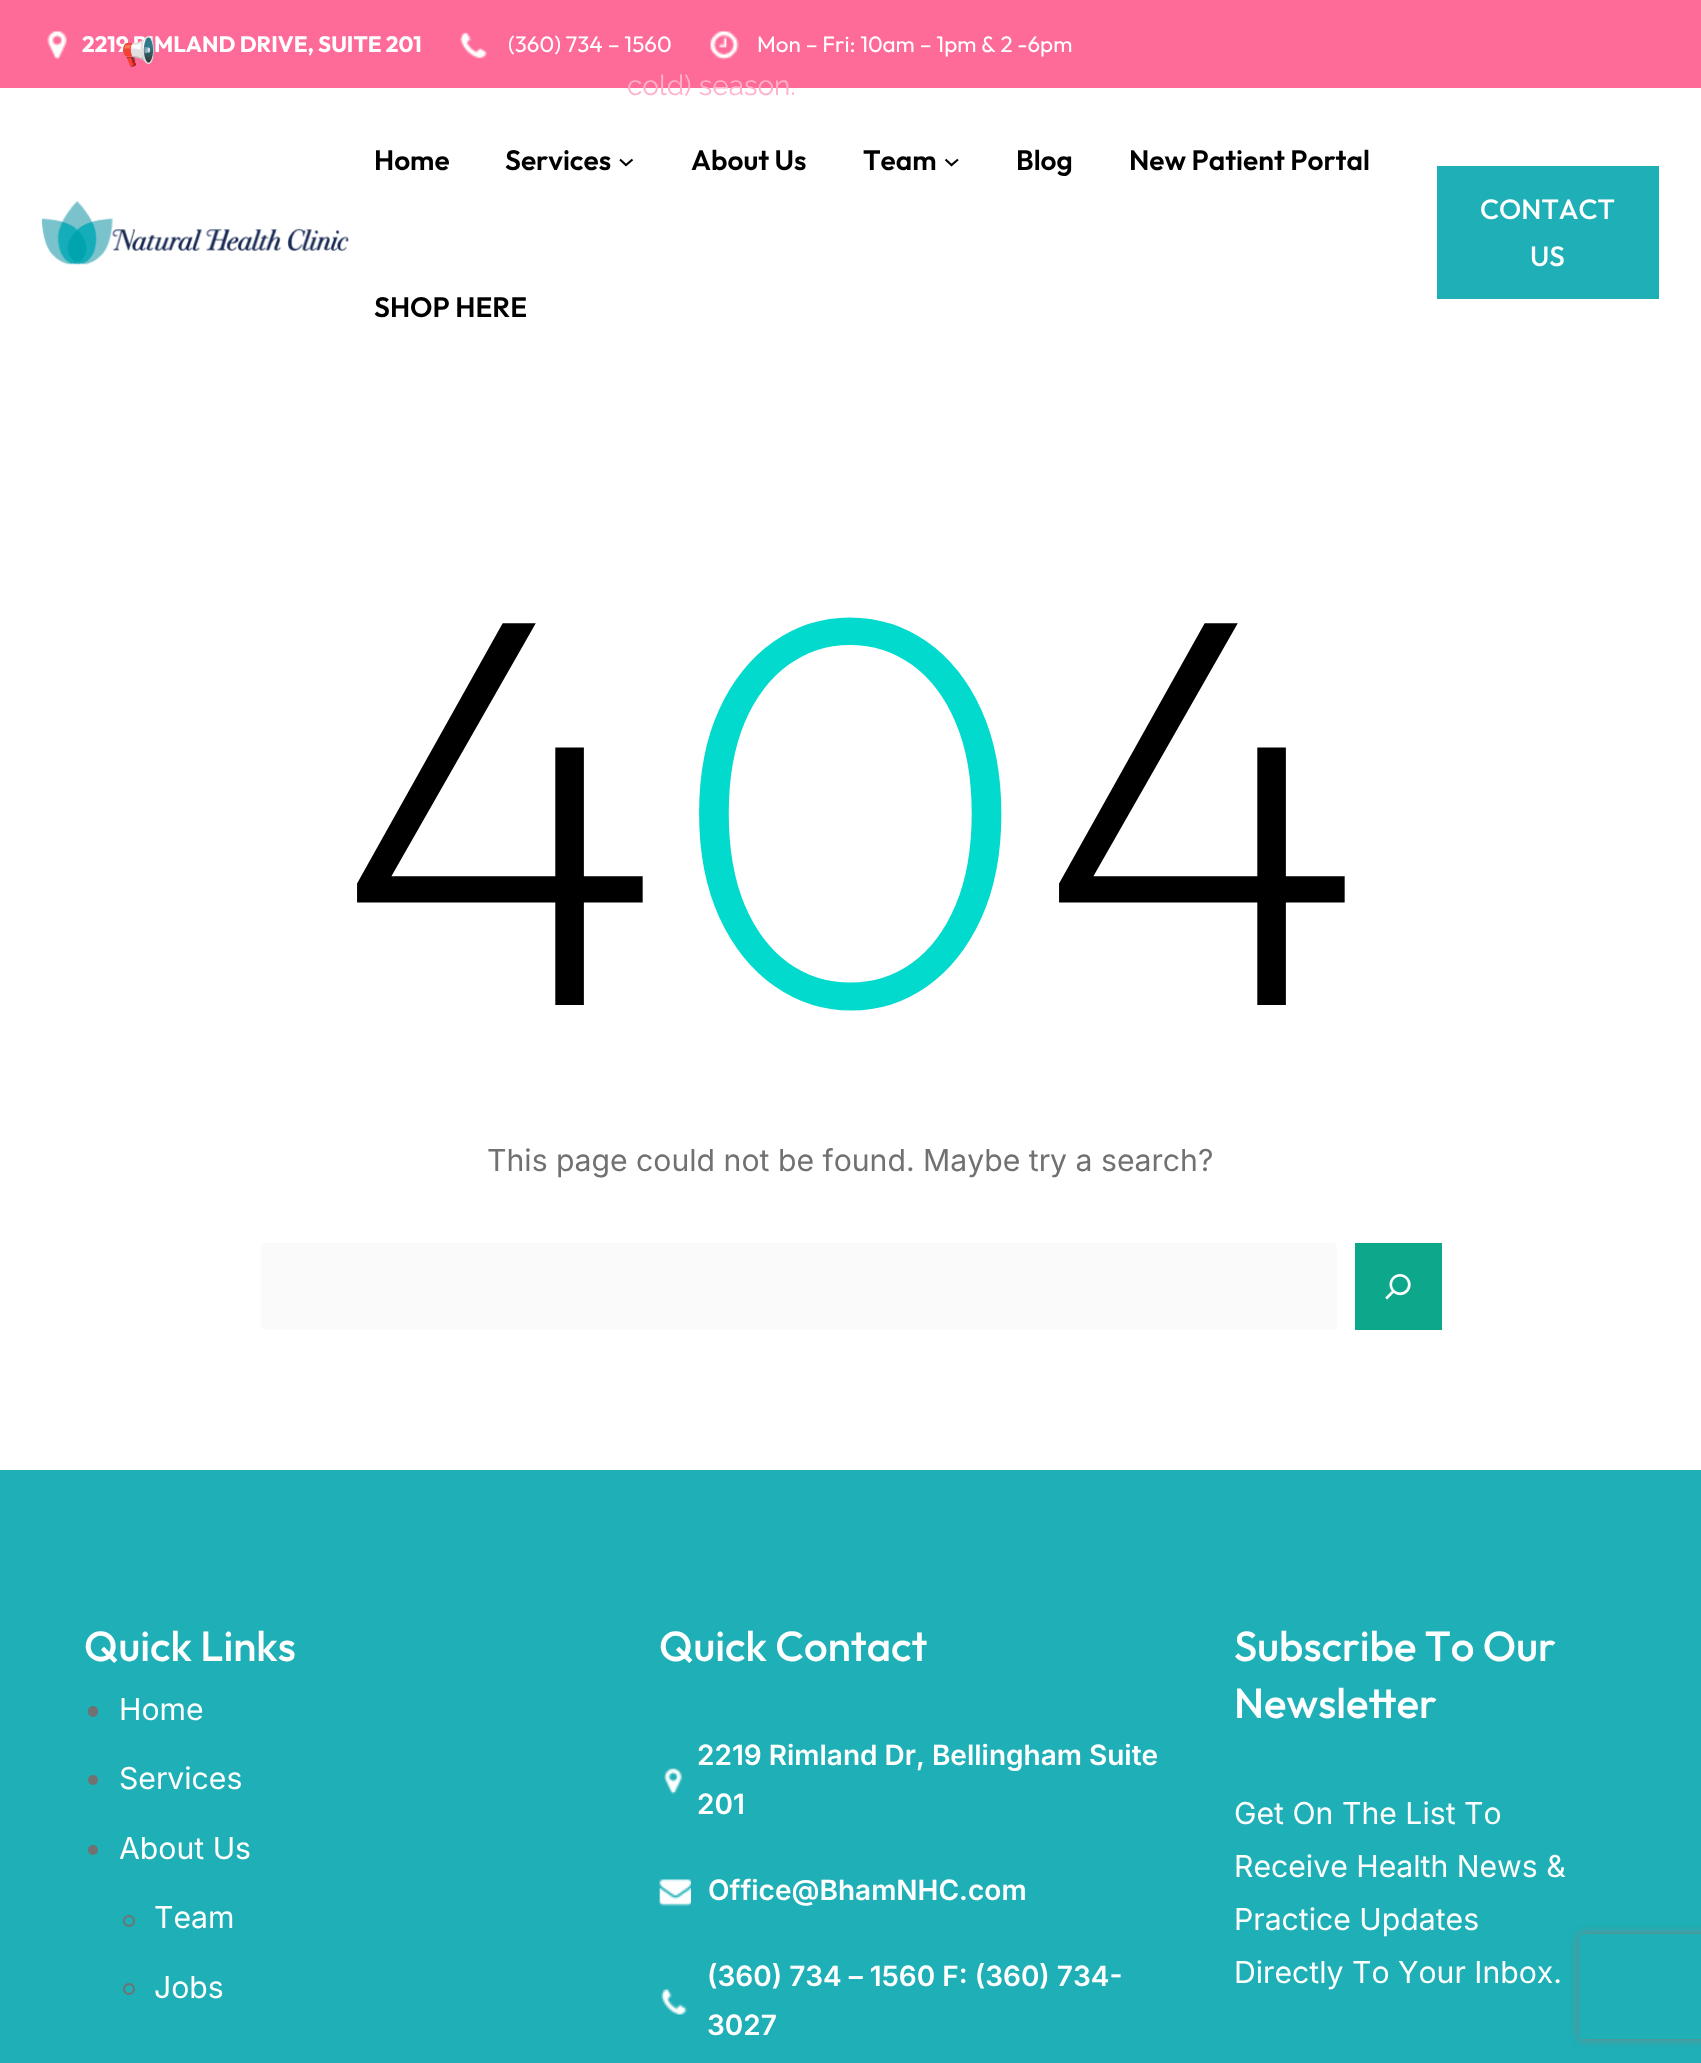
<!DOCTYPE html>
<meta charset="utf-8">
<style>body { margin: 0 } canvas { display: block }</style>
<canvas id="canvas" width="1701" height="2063"></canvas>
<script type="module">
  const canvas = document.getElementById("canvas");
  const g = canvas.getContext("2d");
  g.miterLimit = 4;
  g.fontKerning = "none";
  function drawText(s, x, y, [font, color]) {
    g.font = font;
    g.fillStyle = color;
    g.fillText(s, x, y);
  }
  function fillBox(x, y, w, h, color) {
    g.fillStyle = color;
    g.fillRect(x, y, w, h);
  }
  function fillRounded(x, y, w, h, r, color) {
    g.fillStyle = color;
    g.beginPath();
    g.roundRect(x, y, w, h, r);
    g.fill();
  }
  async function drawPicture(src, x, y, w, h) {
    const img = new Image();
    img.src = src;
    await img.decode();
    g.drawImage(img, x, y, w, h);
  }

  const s1 = ["bold 22.4px Outfit", "#FFFFFF"];
  const s2 = ["22.4px Outfit", "#FFFFFF"];
  const s3 = ["600 28px Outfit", "#000000"];
  const s4 = ["500 28px Outfit", "#FFFFFF"];
  const s5 = ["200 560px Outfit", "#000000"];
  const s6 = ["200 560px Outfit", "#01DACC"];
  const s7 = ["30.2px Inter", "#717171"];
  const s8 = ["500 42px Outfit", "#FFFFFF"];
  const s9 = ["30.2px Inter", "#FFFFFF"];
  const s10 = ["600 28px Inter", "#FFFFFF"];
  const s11 = ["28px Noto Color Emoji", "#FF8EB0"];
  const s12 = ["28px Raleway", "#FFB1C9"];

  fillBox(0, 0, 1701, 2063, "#FFFFFF");
  fillBox(0, 0, 1701, 88, "#FF6B98");
  await drawPicture("pic1.png", 47, 30, 20, 30);
  drawText("2219 RIMLAND DRIVE, SUITE 201", 82, 52, s1);
  await drawPicture("pic2.png", 459, 31, 28, 28);
  drawText("(360) 734 – 1560", 508, 52, s2);
  await drawPicture("pic3.png", 710, 30, 29, 30);
  drawText("Mon – Fri: 10am – 1pm & 2 -6pm", 757, 52, s2);
  await drawPicture("pic4.png", 42, 201, 307, 64);
  drawText("Home", 374, 170, s3);
  drawText("Services", 505, 170, s3);
  g.beginPath();
  g.moveTo(620, 159.5);
  g.lineTo(626, 165);
  g.lineTo(632.5, 159.5);
  g.strokeStyle = "#000000";
  g.lineWidth = 2.1;
  g.stroke();
  drawText("About Us", 691, 170, s3);
  drawText("Team", 863, 170, s3);
  g.beginPath();
  g.moveTo(945.5, 159.5);
  g.lineTo(951.5, 165);
  g.lineTo(958, 159.5);
  g.stroke();
  drawText("Blog", 1016, 170, s3);
  drawText("New Patient Portal", 1129, 170, s3);
  drawText("SHOP HERE", 374, 317, s3);
  fillBox(1437, 166, 222, 133, "#1FAFB6");
  drawText("CONTACT", 1480, 219, s4);
  drawText("US", 1530, 266, s4);
  drawText("4", 333, 1005, s5);
  drawText("0", 666, 1005, s6);
  drawText("4", 1035, 1005, s5);
  drawText("This page could not be found. Maybe try a search?", 487, 1171, s7);
  fillRounded(261, 1243, 1076, 87, 5, "#FAFAFA");
  fillBox(1355, 1243, 87, 87, "#0DA88C");
  await drawPicture("pic5.png", 1385, 1274, 26, 26);
  fillBox(0, 1470, 1701, 593, "#1FAFB6");
  drawText("Quick Links", 84, 1661, s8);
  fillRounded(88, 1706, 10, 11, 5, "#717171");
  drawText("Home", 119, 1720, s9);
  g.fillStyle = "#717171";
  g.beginPath();
  g.arc(93, 1780, 5, 0, Math.PI * 2);
  g.fill();
  drawText("Services", 119, 1789, s9);
  g.fillStyle = "#717171";
  g.beginPath();
  g.arc(93, 1850, 5, 0, Math.PI * 2);
  g.fill();
  drawText("About Us", 119, 1859, s9);
  g.beginPath();
  g.arc(129, 1921, 5, 0, Math.PI * 2);
  g.strokeStyle = "#717171";
  g.lineWidth = 2;
  g.stroke();
  drawText("Team", 154, 1928, s9);
  g.beginPath();
  g.arc(129, 1989, 5, 0, Math.PI * 2);
  g.stroke();
  drawText("Jobs", 154, 1998, s9);
  drawText("Quick Contact", 659, 1661, s8);
  await drawPicture("pic6.png", 664, 1767, 19, 28);
  drawText("2219 Rimland Dr, Bellingham Suite", 697, 1765, s10);
  drawText("201", 697, 1814, s10);
  await drawPicture("pic7.png", 659, 1879, 32, 28);
  drawText("Office@BhamNHC.com", 708, 1900, s10);
  await drawPicture("pic8.png", 661, 1988, 26, 27);
  drawText("(360) 734 – 1560 F: (360) 734-", 707, 1986, s10);
  drawText("3027", 707, 2035, s10);
  drawText("Subscribe To Our", 1234, 1661, s8);
  drawText("Newsletter", 1234, 1718, s8);
  drawText("Get On The List To", 1234, 1824, s9);
  drawText("Receive Health News &", 1234, 1877, s9);
  drawText("Practice Updates", 1234, 1930, s9);
  drawText("Directly To Your Inbox.", 1234, 1983, s9);
  drawText("📢", 121, 61, s11);
  drawText("cold) season.", 627, 95, s12);
  g.save();
  g.beginPath();
  g.moveTo(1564, 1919);
  g.lineTo(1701, 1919);
  g.lineTo(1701, 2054);
  g.lineTo(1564, 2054);
  g.closePath();
  g.moveTo(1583, 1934);
  g.lineTo(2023, 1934);
  g.bezierCurveTo(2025, 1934, 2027, 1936, 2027, 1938);
  g.lineTo(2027, 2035);
  g.bezierCurveTo(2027, 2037, 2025, 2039, 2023, 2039);
  g.lineTo(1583, 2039);
  g.bezierCurveTo(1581, 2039, 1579, 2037, 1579, 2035);
  g.lineTo(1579, 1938);
  g.bezierCurveTo(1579, 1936, 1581, 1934, 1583, 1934);
  g.closePath();
  g.clip("evenodd");
  g.fillStyle = "#808080";
  g.filter = "blur(4.5px)";
  g.beginPath();
  g.roundRect(1579, 1934, 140, 105, 4);
  g.fill();
  g.filter = "none";
  g.restore();
</script>
